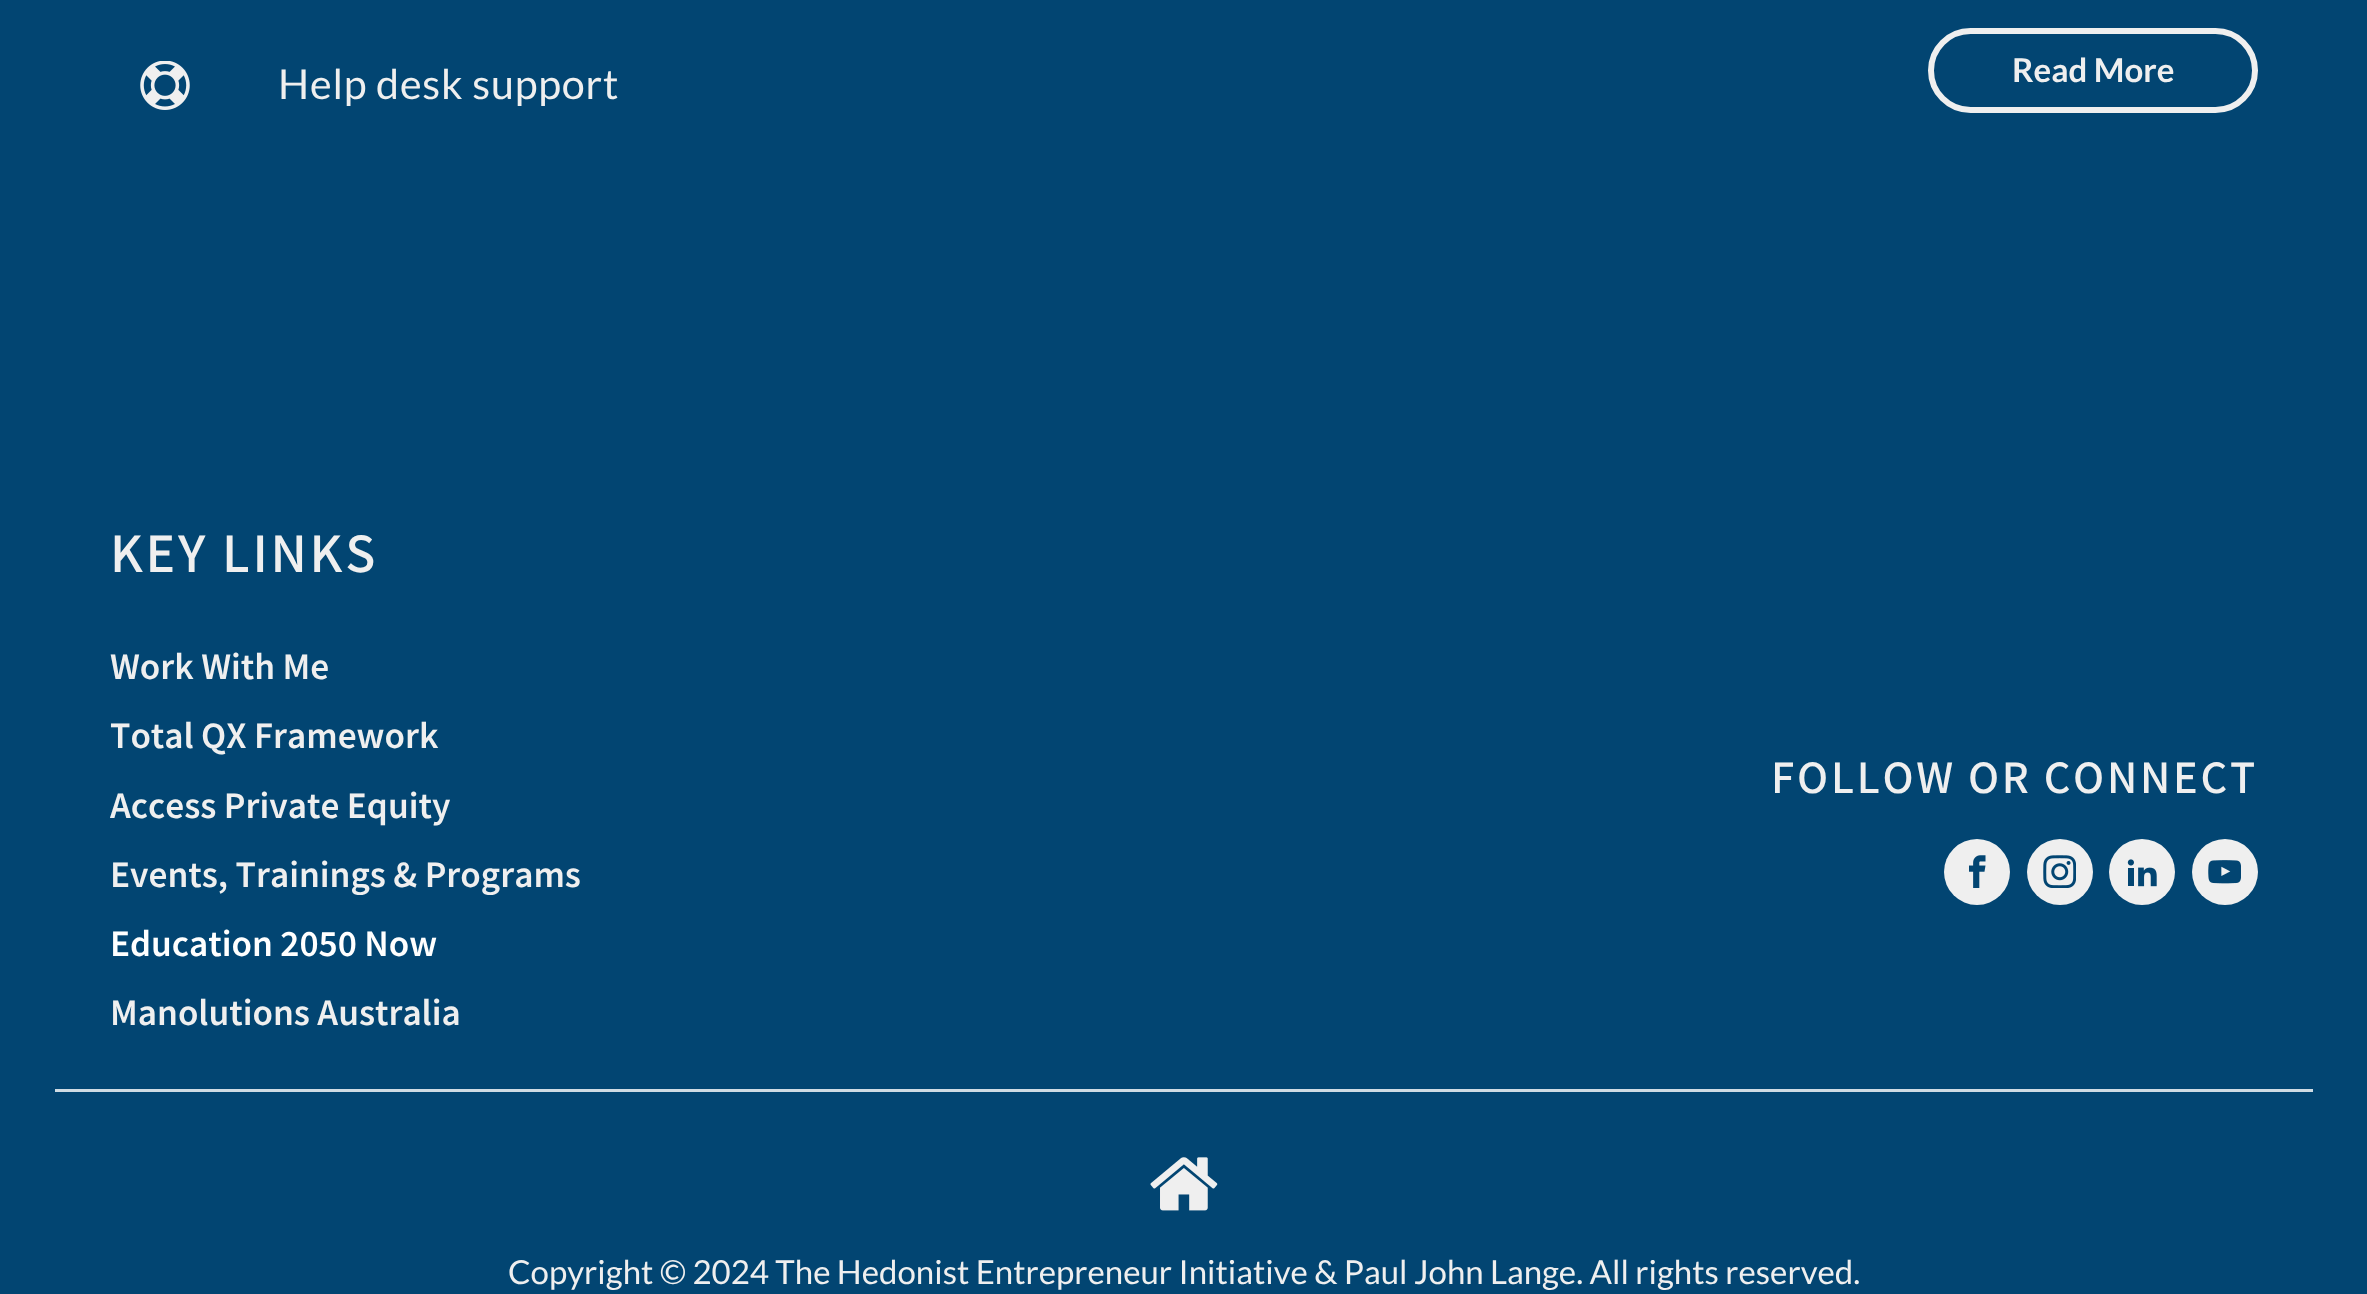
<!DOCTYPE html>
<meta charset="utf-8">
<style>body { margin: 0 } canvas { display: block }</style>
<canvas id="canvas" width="2367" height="1294"></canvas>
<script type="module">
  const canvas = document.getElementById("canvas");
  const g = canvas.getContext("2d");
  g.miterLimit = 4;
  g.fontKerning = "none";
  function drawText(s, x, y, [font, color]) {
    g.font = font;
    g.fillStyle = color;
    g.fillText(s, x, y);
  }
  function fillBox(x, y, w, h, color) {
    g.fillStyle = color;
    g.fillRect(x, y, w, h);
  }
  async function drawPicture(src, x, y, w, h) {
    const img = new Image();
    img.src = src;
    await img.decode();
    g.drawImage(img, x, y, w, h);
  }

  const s1 = ["41.25px Lato", "#EFEFEF"];
  const s2 = ["bold 33px Lato", "#EFEFEF"];
  const s3 = ["500 49.5px Noto Sans JP", "#EFEFEF"];
  const s4 = ["600 33px Noto Sans JP", "#EFEFEF"];
  const s5 = ["600 33px Noto Sans JP", "#FFFFFF"];
  const s6 = ["500 41.25px Noto Sans JP", "#EFEFEF"];
  const s7 = ["33px Lato", "#EFEFEF"];

  fillBox(0, 0, 2367, 1294, "#024572");
  await drawPicture("pic1.png", 140, 61, 50, 49);
  g.letterSpacing = "0.8px";
  drawText("Help desk support", 278, 99, s1);
  g.beginPath();
  g.roundRect(1931, 31, 324, 79, 39.5);
  g.strokeStyle = "#EFEFEF";
  g.lineWidth = 6;
  g.stroke();
  g.letterSpacing = "0px";
  drawText("Read More", 2012, 82, s2);
  g.letterSpacing = "2.75px";
  drawText("KEY LINKS", 110, 572, s3);
  g.letterSpacing = "0px";
  drawText("Work With Me", 110, 679, s4);
  drawText("Total QX", 110, 748, s4);
  drawText("Framework", 254, 748, s4);
  drawText("Access Private Equity", 110, 818, s4);
  drawText("Events, Trainings & Programs", 110, 887, s4);
  drawText("Education 2050 Now", 110, 956, s5);
  drawText("Manolutions Australia", 110, 1025, s4);
  g.letterSpacing = "2.75px";
  drawText("FOLLOW OR CONNECT", 1771, 793, s6);
  g.beginPath();
  g.arc(1977, 872, 33, 0, Math.PI * 2);
  g.fill();
  await drawPicture("pic2.png", 1969, 855, 17, 33);
  g.beginPath();
  g.arc(2060, 872, 33, 0, Math.PI * 2);
  g.fill();
  await drawPicture("pic3.png", 2043, 855, 33, 33);
  g.beginPath();
  g.arc(2142, 872, 33, 0, Math.PI * 2);
  g.fill();
  await drawPicture("pic4.png", 2127, 859, 30, 28);
  g.beginPath();
  g.arc(2225, 872, 33, 0, Math.PI * 2);
  g.fill();
  await drawPicture("pic5.png", 2208, 860, 33, 24);
  fillBox(55, 1089, 2258, 3, "#CFDCE4");
  await drawPicture("pic6.png", 1150, 1157, 68, 54);
  g.letterSpacing = "0px";
  drawText("Copyright © 2024 The Hedonist Entrepreneur Initiative & Paul John Lange. All rights reserved.", 508, 1284, s7);
</script>
